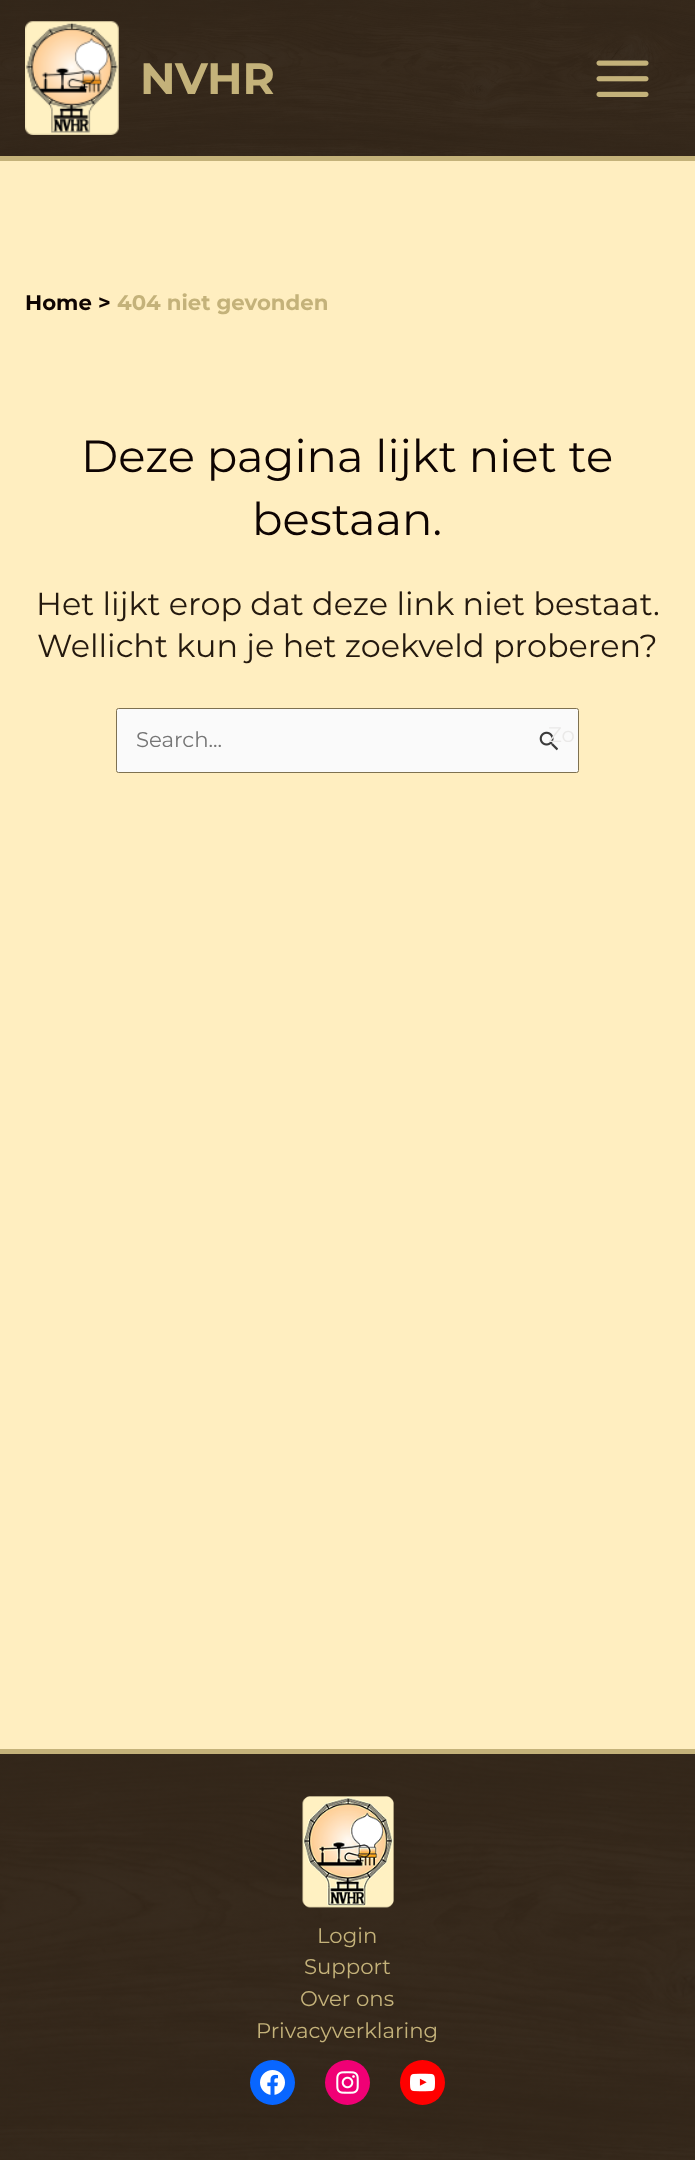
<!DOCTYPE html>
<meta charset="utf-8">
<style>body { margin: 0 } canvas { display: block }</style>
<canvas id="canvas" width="695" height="2160"></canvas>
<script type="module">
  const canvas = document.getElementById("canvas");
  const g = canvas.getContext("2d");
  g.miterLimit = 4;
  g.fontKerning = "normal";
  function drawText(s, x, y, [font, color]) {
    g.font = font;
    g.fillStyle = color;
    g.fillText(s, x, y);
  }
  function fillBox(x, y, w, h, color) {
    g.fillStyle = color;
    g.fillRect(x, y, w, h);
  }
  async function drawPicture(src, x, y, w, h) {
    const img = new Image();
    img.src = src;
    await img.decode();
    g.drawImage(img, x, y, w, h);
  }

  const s1 = ["bold 44px Montserrat", "#C4B27A"];
  const s2 = ["bold 21.25px Montserrat", "#0E0402"];
  const s3 = ["bold 21.25px Montserrat", "#C4B27A"];
  const s4 = ["45px Montserrat", "#0E0402"];
  const s5 = ["31.9px Montserrat", "#24190E"];
  const s6 = ["21.25px Montserrat", "#757575"];
  const s7 = ["21.25px Montserrat", "#EAE9E8"];
  const s8 = ["21.25px Montserrat", "#C4B27A"];

  fillBox(0, 0, 695, 2160, "#FFEEC0");
  await drawPicture("pic1.png", 0, 0, 695, 156);
  fillBox(0, 156, 695, 5, "#C4B27A");
  await drawPicture("pic2.png", 25, 21, 94, 114);
  drawText("NVHR", 140, 94, s1);
  await drawPicture("pic3.png", 596, 60, 53, 37);
  drawText("Home", 25, 310, s2);
  drawText(">", 98, 310, s2);
  drawText("404 niet gevonden", 117, 310, s3);
  drawText("Deze pagina lijkt niet te", 81, 472, s4);
  drawText("bestaan.", 252, 535, s4);
  drawText("Het lijkt erop dat deze link niet bestaat.", 36, 615, s5);
  drawText("Wellicht kun je het zoekveld proberen?", 37, 657, s5);
  g.fillStyle = "#FAFAFA";
  g.beginPath();
  g.roundRect(116.5, 708.5, 462, 64, 2);
  g.fill();
  g.strokeStyle = "#7E7151";
  g.stroke();
  drawText("Search...", 136, 747, s6);
  await drawPicture("pic4.png", 539, 731, 19, 20);
  drawText("Zo", 548, 742, s7);
  await drawPicture("pic5.png", 0, 1754, 695, 406);
  fillBox(0, 1749, 695, 5, "#C4B27A");
  await drawPicture("pic6.png", 302, 1796, 92, 112);
  drawText("Login", 317, 1943, s8);
  drawText("Support", 304, 1974, s8);
  drawText("Over ons", 300, 2006, s8);
  drawText("Privacyverklaring", 256, 2038, s8);
  g.fillStyle = "#0866FF";
  g.beginPath();
  g.arc(272.5, 2082.5, 22.5, 0, Math.PI * 2);
  g.fill();
  await drawPicture("pic7.png", 260, 2070, 25, 25);
  g.fillStyle = "#F00075";
  g.beginPath();
  g.arc(347.5, 2082.5, 22.5, 0, Math.PI * 2);
  g.fill();
  await drawPicture("pic8.png", 336, 2071, 23, 23);
  g.fillStyle = "#FF0000";
  g.beginPath();
  g.arc(422.5, 2082.5, 22.5, 0, Math.PI * 2);
  g.fill();
  await drawPicture("pic9.png", 410, 2073, 25, 19);
</script>
